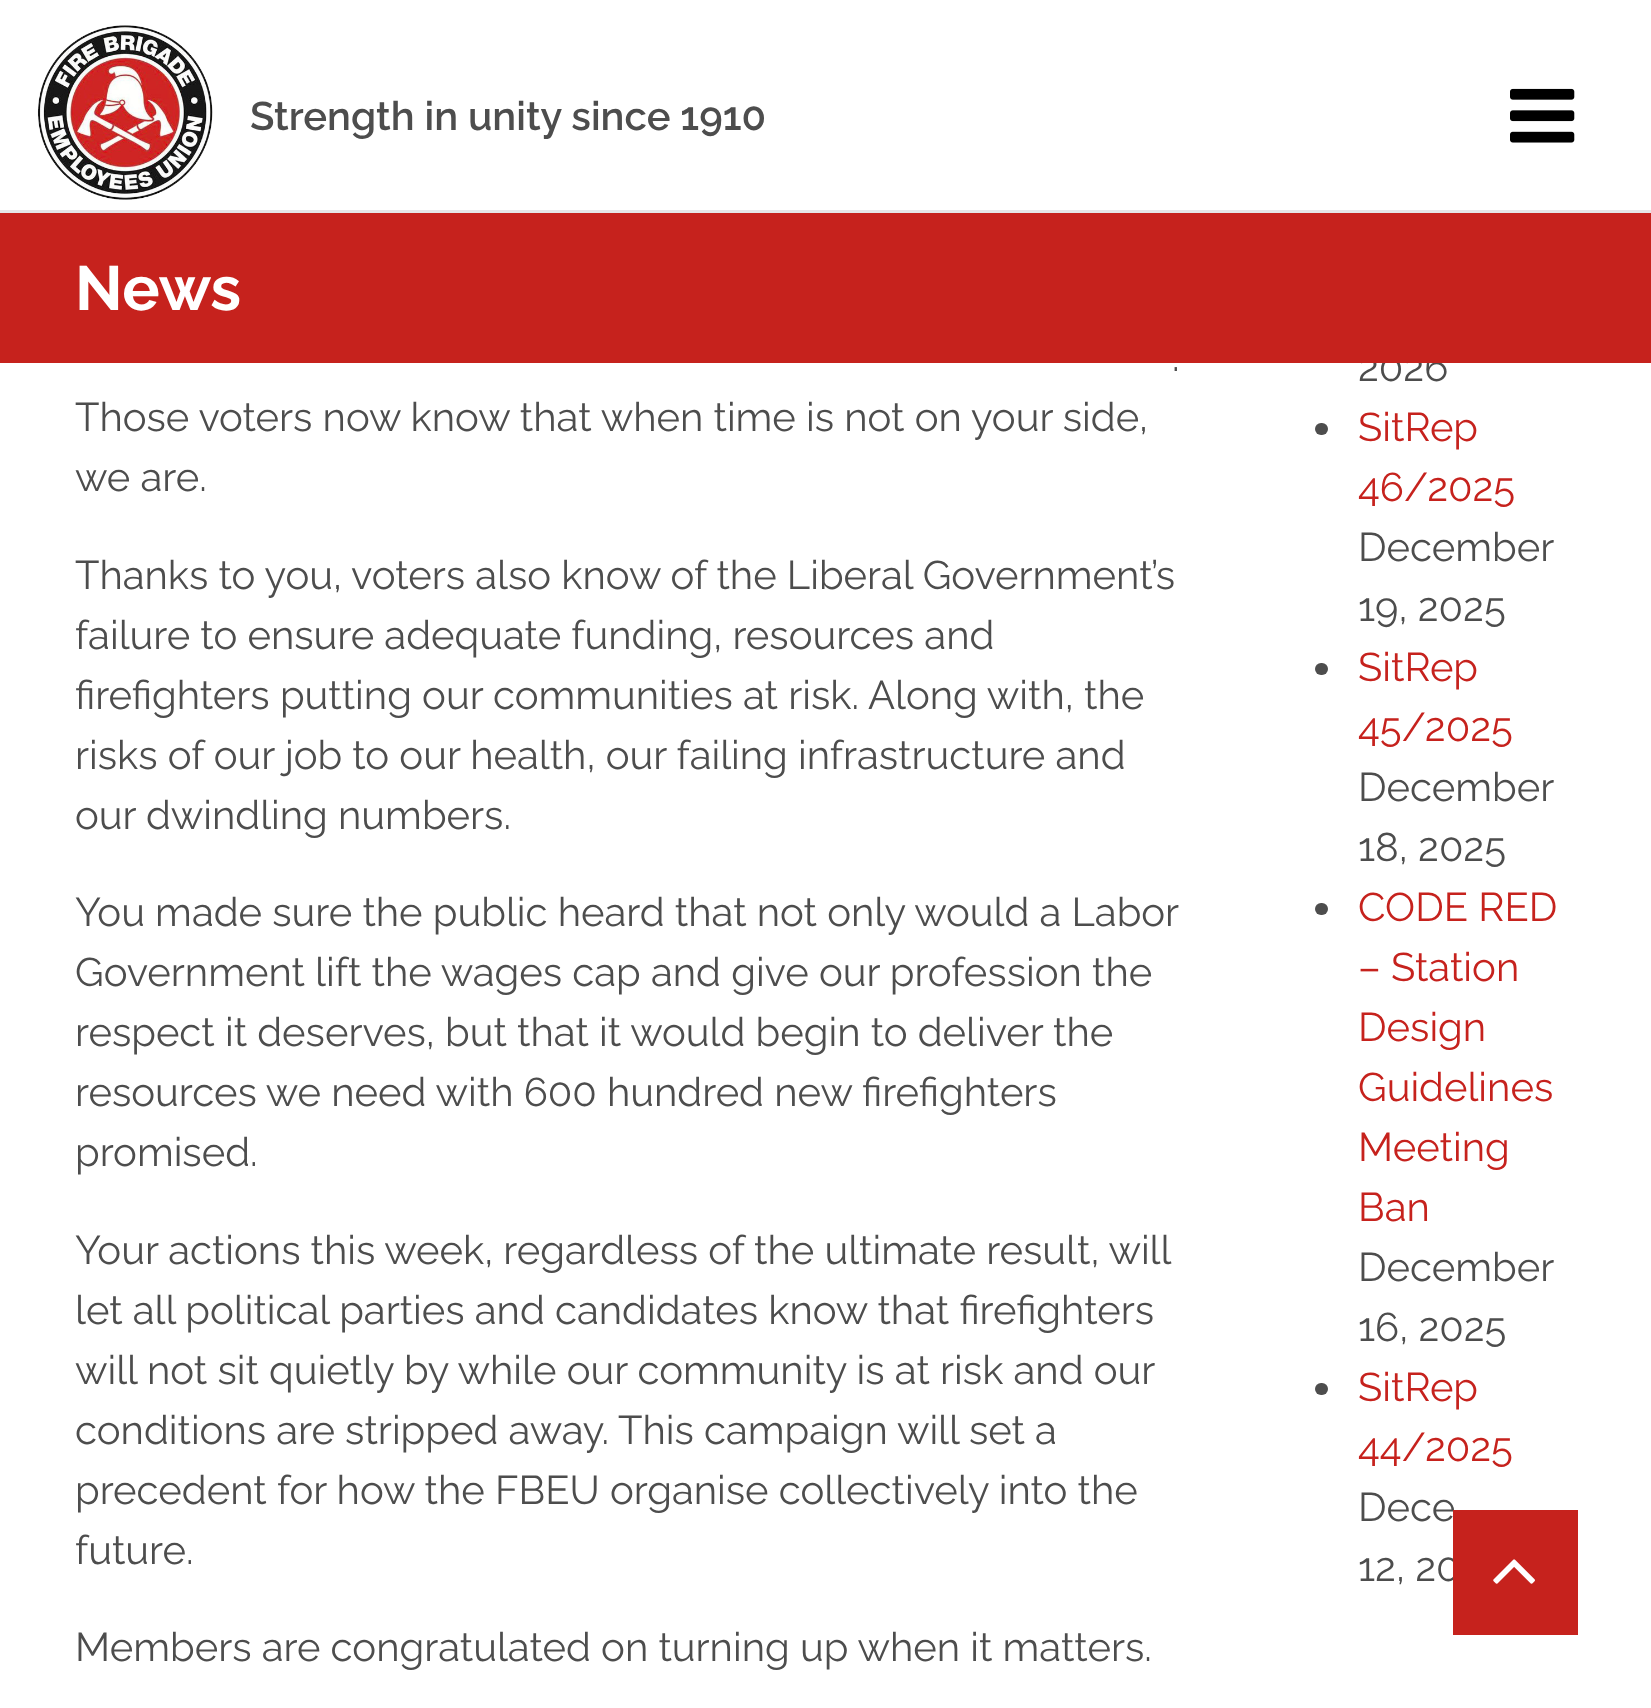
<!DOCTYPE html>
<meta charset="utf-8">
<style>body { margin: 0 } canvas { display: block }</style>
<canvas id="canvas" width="1651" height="1708"></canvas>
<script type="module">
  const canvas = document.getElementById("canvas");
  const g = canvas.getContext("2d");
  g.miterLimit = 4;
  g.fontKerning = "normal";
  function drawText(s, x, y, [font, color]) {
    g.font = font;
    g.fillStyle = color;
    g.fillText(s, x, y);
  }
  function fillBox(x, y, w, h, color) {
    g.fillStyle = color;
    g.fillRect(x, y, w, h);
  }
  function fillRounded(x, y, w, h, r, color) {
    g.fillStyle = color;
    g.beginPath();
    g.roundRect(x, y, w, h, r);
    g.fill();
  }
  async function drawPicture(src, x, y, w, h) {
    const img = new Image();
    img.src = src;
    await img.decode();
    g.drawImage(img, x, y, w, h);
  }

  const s1 = ["600 40px Raleway", "#4D4D4D"];
  const s2 = ["40px Raleway", "#4D4D4D"];
  const s3 = ["bold 62.5px Raleway", "#FFFFFF"];
  const s4 = ["40px Raleway", "#C6221D"];

  fillBox(0, 0, 1651, 1708, "#FFFFFF");
  fillBox(0, 210, 1651, 3, "#E6E6E6");
  await drawPicture("pic1.png", 37, 25, 176, 175);
  drawText("Strength in unity since 1910", 250, 130, s1);
  await drawPicture("pic2.png", 1510, 88, 65, 55);
  drawText("2026", 1358, 381, s2);
  fillBox(0, 213, 1651, 150, "#C6221D");
  drawText("News", 75, 310, s3);
  drawText(".", 1172, 371, s2);
  drawText("Those voters now know that when time is not on your side,", 75, 431, s2);
  drawText("we are.", 75, 491, s2);
  drawText("Thanks to you, voters also know of the Liberal Government’s", 75, 589, s2);
  drawText("failure to ensure adequate funding, resources and", 75, 649, s2);
  drawText("firefighters putting our communities at risk. Along with, the", 75, 709, s2);
  drawText("risks of our job to our health, our failing infrastructure and", 75, 769, s2);
  drawText("our dwindling numbers.", 75, 829, s2);
  drawText("You made sure the public heard that not only would a Labor", 75, 926, s2);
  drawText("Government lift the wages cap and give our profession the", 75, 986, s2);
  drawText("respect it deserves, but that it would begin to deliver the", 75, 1046, s2);
  drawText("resources we need with 600 hundred new firefighters", 75, 1106, s2);
  drawText("promised.", 75, 1166, s2);
  g.wordSpacing = "-0.1px";
  drawText("Your actions this week, regardless of the ultimate result, will", 75, 1264, s2);
  g.wordSpacing = "0px";
  drawText("let all political parties and candidates know that firefighters", 75, 1324, s2);
  drawText("will not sit quietly by while our community is at risk and our", 75, 1384, s2);
  drawText("conditions are stripped away. This campaign will set a", 75, 1444, s2);
  drawText("precedent for how the FBEU organise collectively into the", 75, 1504, s2);
  drawText("future.", 75, 1564, s2);
  drawText("Members are congratulated on turning up when it matters.", 75, 1661, s2);
  fillRounded(1315, 423, 13, 12, 6, "#4D4D4D");
  drawText("SitRep", 1358, 441, s4);
  drawText("46/2025", 1358, 501, s4);
  drawText("December", 1358, 561, s2);
  drawText("19, 2025", 1358, 621, s2);
  fillRounded(1315, 663, 13, 12, 6, "#4D4D4D");
  drawText("SitRep", 1358, 681, s4);
  drawText("45/2025", 1358, 741, s4);
  drawText("December", 1358, 801, s2);
  drawText("18, 2025", 1358, 861, s2);
  fillRounded(1315, 903, 13, 12, 6, "#4D4D4D");
  drawText("CODE RED", 1358, 921, s4);
  drawText("– Station", 1358, 981, s4);
  drawText("Design", 1358, 1041, s4);
  drawText("Guidelines", 1358, 1101, s4);
  drawText("Meeting", 1358, 1161, s4);
  drawText("Ban", 1358, 1221, s4);
  drawText("December", 1358, 1281, s2);
  drawText("16, 2025", 1358, 1341, s2);
  fillRounded(1315, 1383, 13, 12, 6, "#4D4D4D");
  drawText("SitRep", 1358, 1401, s4);
  drawText("44/2025", 1358, 1461, s4);
  drawText("Dece", 1358, 1521, s2);
  drawText("12, 20", 1358, 1581, s2);
  fillBox(1453, 1510, 125, 125, "#C6221D");
  await drawPicture("pic3.png", 1493, 1559, 42, 25);
</script>
